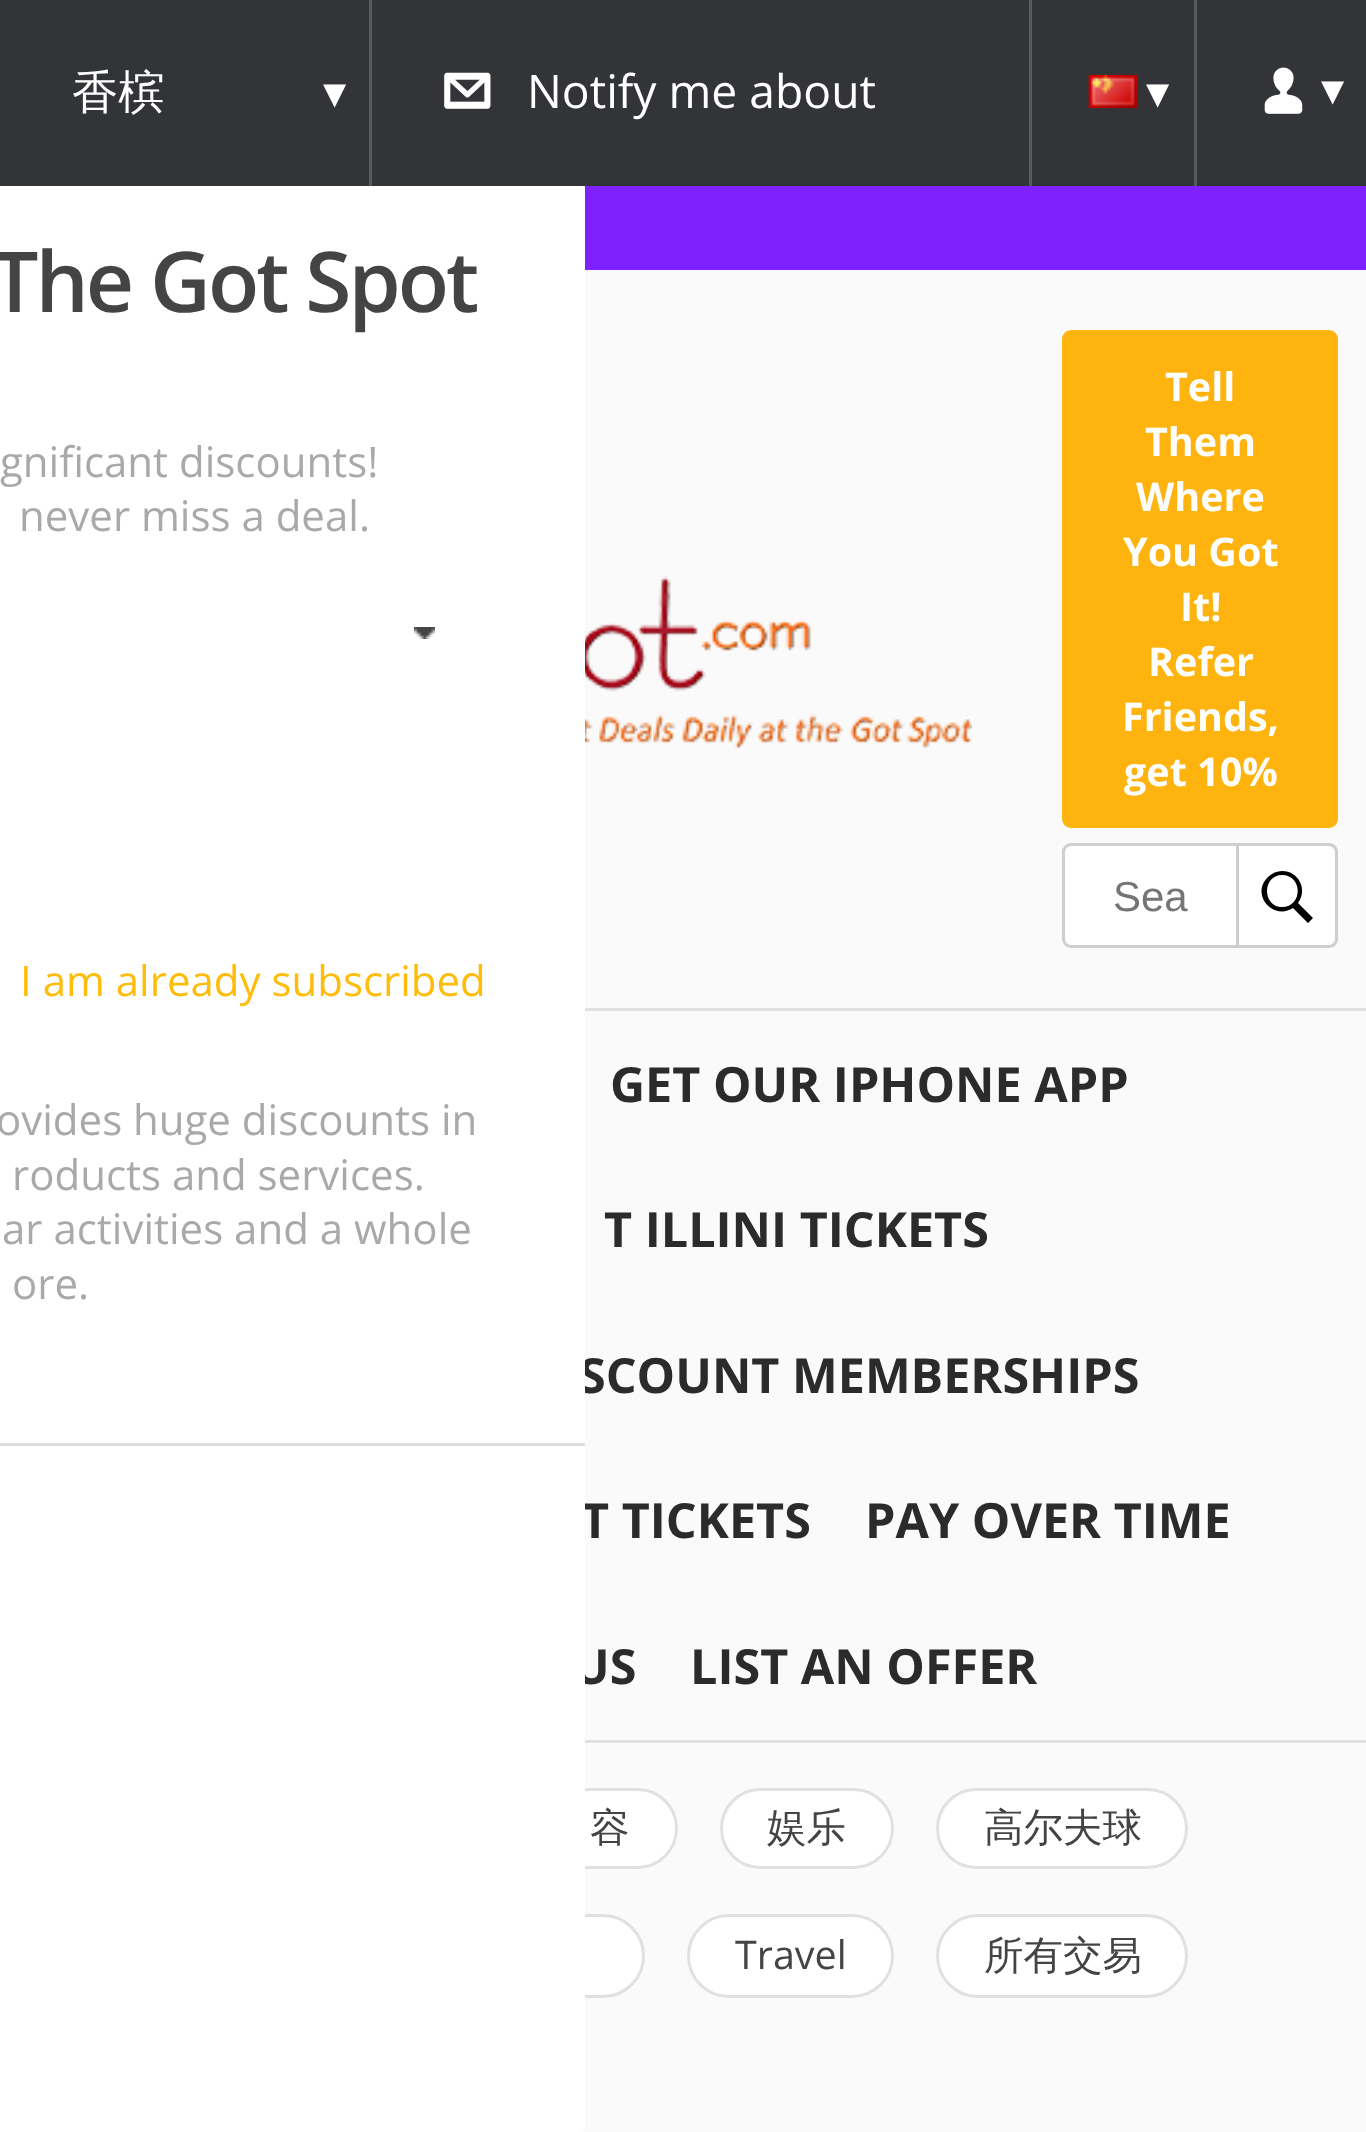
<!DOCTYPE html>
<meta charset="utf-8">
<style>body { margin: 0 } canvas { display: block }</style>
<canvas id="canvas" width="1366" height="2132"></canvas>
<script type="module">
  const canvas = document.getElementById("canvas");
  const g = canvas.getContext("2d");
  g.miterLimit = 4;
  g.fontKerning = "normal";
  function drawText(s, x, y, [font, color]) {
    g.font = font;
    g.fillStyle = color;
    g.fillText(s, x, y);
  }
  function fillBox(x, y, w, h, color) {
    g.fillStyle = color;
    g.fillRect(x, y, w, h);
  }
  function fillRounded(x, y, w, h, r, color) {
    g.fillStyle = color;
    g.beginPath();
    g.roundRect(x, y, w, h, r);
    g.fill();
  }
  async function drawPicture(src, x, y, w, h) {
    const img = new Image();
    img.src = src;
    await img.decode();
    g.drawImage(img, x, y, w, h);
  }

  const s1 = ["bold 48.5px Open Sans", "#2B2B2B"];
  const s2 = ["500 46.25px WenQuanYi Zen Hei", "#FFFFFF"];
  const s3 = ["46.25px DejaVu Sans", "#FFFFFF"];
  const s4 = ["46.25px Open Sans", "#FFFFFF"];
  const s5 = ["bold 39.5px Open Sans", "#FFFFFF"];
  const s6 = ["42px Liberation Sans", "#757575"];
  const s7 = ["500 39.5px WenQuanYi Zen Hei", "#444444"];
  const s8 = ["39.5px Open Sans", "#444444"];
  const s9 = ["600 84px Open Sans", "#444444"];
  const s10 = ["42px Open Sans", "#A8A9AA"];
  const s11 = ["42px Open Sans", "#FFBD0B"];

  fillBox(0, 0, 1366, 2132, "#7F20FF");
  fillBox(585, 1011, 781, 729, "#FAFAFA");
  drawText("SCOUNT MEMBERSHIPS", 579, 1393, s1);
  drawText("T TICKETS", 581, 1538, s1);
  drawText("US", 573, 1684, s1);
  fillBox(585, 1743, 781, 315, "#FAFAFA");
  g.fillStyle = "#FFFFFF";
  g.beginPath();
  g.roundRect(385.5, 1789.5, 291, 78, 39);
  g.fill();
  g.strokeStyle = "#E1E1E1";
  g.lineWidth = 3;
  g.stroke();
  g.beginPath();
  g.roundRect(472.5, 1915.5, 171, 81, 40.5);
  g.fill();
  g.stroke();
  fillBox(582, 2058, 784, 74, "#FAFAFA");
  g.fillStyle = "#FFFFFF";
  g.beginPath();
  g.moveTo(0, 0);
  g.lineTo(579, 0);
  g.bezierCurveTo(582.5, 0, 585, 2.5, 585, 6);
  g.lineTo(585, 2127);
  g.bezierCurveTo(585, 2130.5, 582.5, 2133, 579, 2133);
  g.lineTo(0, 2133);
  g.closePath();
  g.fill();
  fillBox(0, 0, 1366, 186, "#323437");
  fillBox(369, 0, 3, 186, "#565A5F");
  drawText("香槟", 72, 108, s2);
  drawText("▾", 323, 108, s3);
  await drawPicture("pic1.png", 444, 72, 47, 37);
  drawText("Notify me about", 527, 108, s4);
  fillBox(1029, 0, 3, 186, "#565A5F");
  await drawPicture("pic2.png", 1088, 75, 49, 33);
  drawText("▾", 1146, 108, s3);
  fillBox(1194, 0, 3, 186, "#565A5F");
  await drawPicture("pic3.png", 1264, 67, 39, 47);
  drawText("▾", 1321, 105, s3);
  fillBox(585, 270, 781, 738, "#FAFAFA");
  await drawPicture("pic4.png", 585, 576, 387, 172);
  fillRounded(1062, 330, 276, 498, 9, "#FFB30F");
  drawText("Tell", 1165, 401, s5);
  drawText("Them", 1145, 456, s5);
  drawText("Where", 1136, 511, s5);
  drawText("You Got", 1123, 566, s5);
  drawText("It!", 1180, 621, s5);
  drawText("Refer", 1148, 676, s5);
  drawText("Friends,", 1122, 731, s5);
  drawText("get 10%", 1124, 786, s5);
  g.beginPath();
  g.roundRect(1063.5, 844.5, 174, 102, [7.5, 0, 0, 7.5]);
  g.fill();
  g.strokeStyle = "#CECECE";
  g.stroke();
  drawText("Sea", 1113, 911, s6);
  g.fillStyle = "#FFFFFF";
  g.beginPath();
  g.roundRect(1239, 843, 99, 105, [0, 9, 9, 0]);
  g.fill();
  g.fillStyle = "#CECECE";
  g.beginPath();
  g.moveTo(1239, 843);
  g.lineTo(1329, 843);
  g.bezierCurveTo(1334, 843, 1338, 847, 1338, 852);
  g.lineTo(1338, 939);
  g.bezierCurveTo(1338, 944, 1334, 948, 1329, 948);
  g.lineTo(1239, 948);
  g.closePath();
  g.moveTo(1239, 846);
  g.lineTo(1329, 846);
  g.bezierCurveTo(1332, 846, 1335, 849, 1335, 852);
  g.lineTo(1335, 939);
  g.bezierCurveTo(1335, 942, 1332, 945, 1329, 945);
  g.lineTo(1239, 945);
  g.closePath();
  g.fill("evenodd");
  g.fillStyle = "#000000";
  g.beginPath();
  g.moveTo(1282, 871);
  g.bezierCurveTo(1277, 871, 1272, 873, 1268, 877);
  g.bezierCurveTo(1250, 894, 1273, 921, 1293, 908);
  g.lineTo(1308, 923);
  g.lineTo(1313, 918);
  g.lineTo(1298, 903);
  g.bezierCurveTo(1308, 890, 1299, 871, 1282, 871);
  g.closePath();
  g.moveTo(1282, 875);
  g.bezierCurveTo(1303, 875, 1303, 907, 1282, 907);
  g.bezierCurveTo(1262, 907, 1262, 875, 1282, 875);
  g.closePath();
  g.fill();
  fillBox(585, 1008, 781, 3, "#E1E1E1");
  fillBox(585, 1740, 781, 3, "#E1E1E1");
  drawText("GET OUR IPHONE APP", 610, 1102, s1);
  drawText("T ILLINI TICKETS", 604, 1247, s1);
  drawText("PAY OVER TIME", 865, 1538, s1);
  drawText("LIST AN OFFER", 690, 1684, s1);
  drawText("容", 590, 1841, s7);
  g.fillStyle = "#FFFFFF";
  g.beginPath();
  g.roundRect(721.5, 1789.5, 171, 78, 39);
  g.fill();
  g.strokeStyle = "#E1E1E1";
  g.stroke();
  drawText("娱乐", 767, 1841, s7);
  g.fillStyle = "#FFFFFF";
  g.beginPath();
  g.roundRect(937.5, 1789.5, 249, 78, 39);
  g.fill();
  g.stroke();
  drawText("高尔夫球", 984, 1841, s7);
  g.fillStyle = "#FFFFFF";
  g.beginPath();
  g.roundRect(688.5, 1915.5, 204, 81, 40.5);
  g.fill();
  g.stroke();
  drawText("Travel", 735, 1969, s8);
  g.fillStyle = "#FFFFFF";
  g.beginPath();
  g.roundRect(937.5, 1915.5, 249, 81, 40.5);
  g.fill();
  g.stroke();
  drawText("所有交易", 984, 1969, s7);
  fillBox(0, 1443, 585, 3, "#DDDDDD");
  g.letterSpacing = "-3px";
  drawText("The Got Spot", -9, 312, s9);
  g.letterSpacing = "0px";
  drawText("gnificant discounts!", 0, 477, s10);
  drawText("never miss a deal.", 19, 531, s10);
  await drawPicture("pic5.png", 414, 627, 21, 12);
  drawText("I am already subscribed", 20, 996, s11);
  drawText("ovides huge discounts in", -4, 1135, s10);
  drawText("roducts and services.", 12, 1190, s10);
  drawText("ar activities and a whole", 2, 1244, s10);
  drawText("ore.", 12, 1299, s10);
</script>
